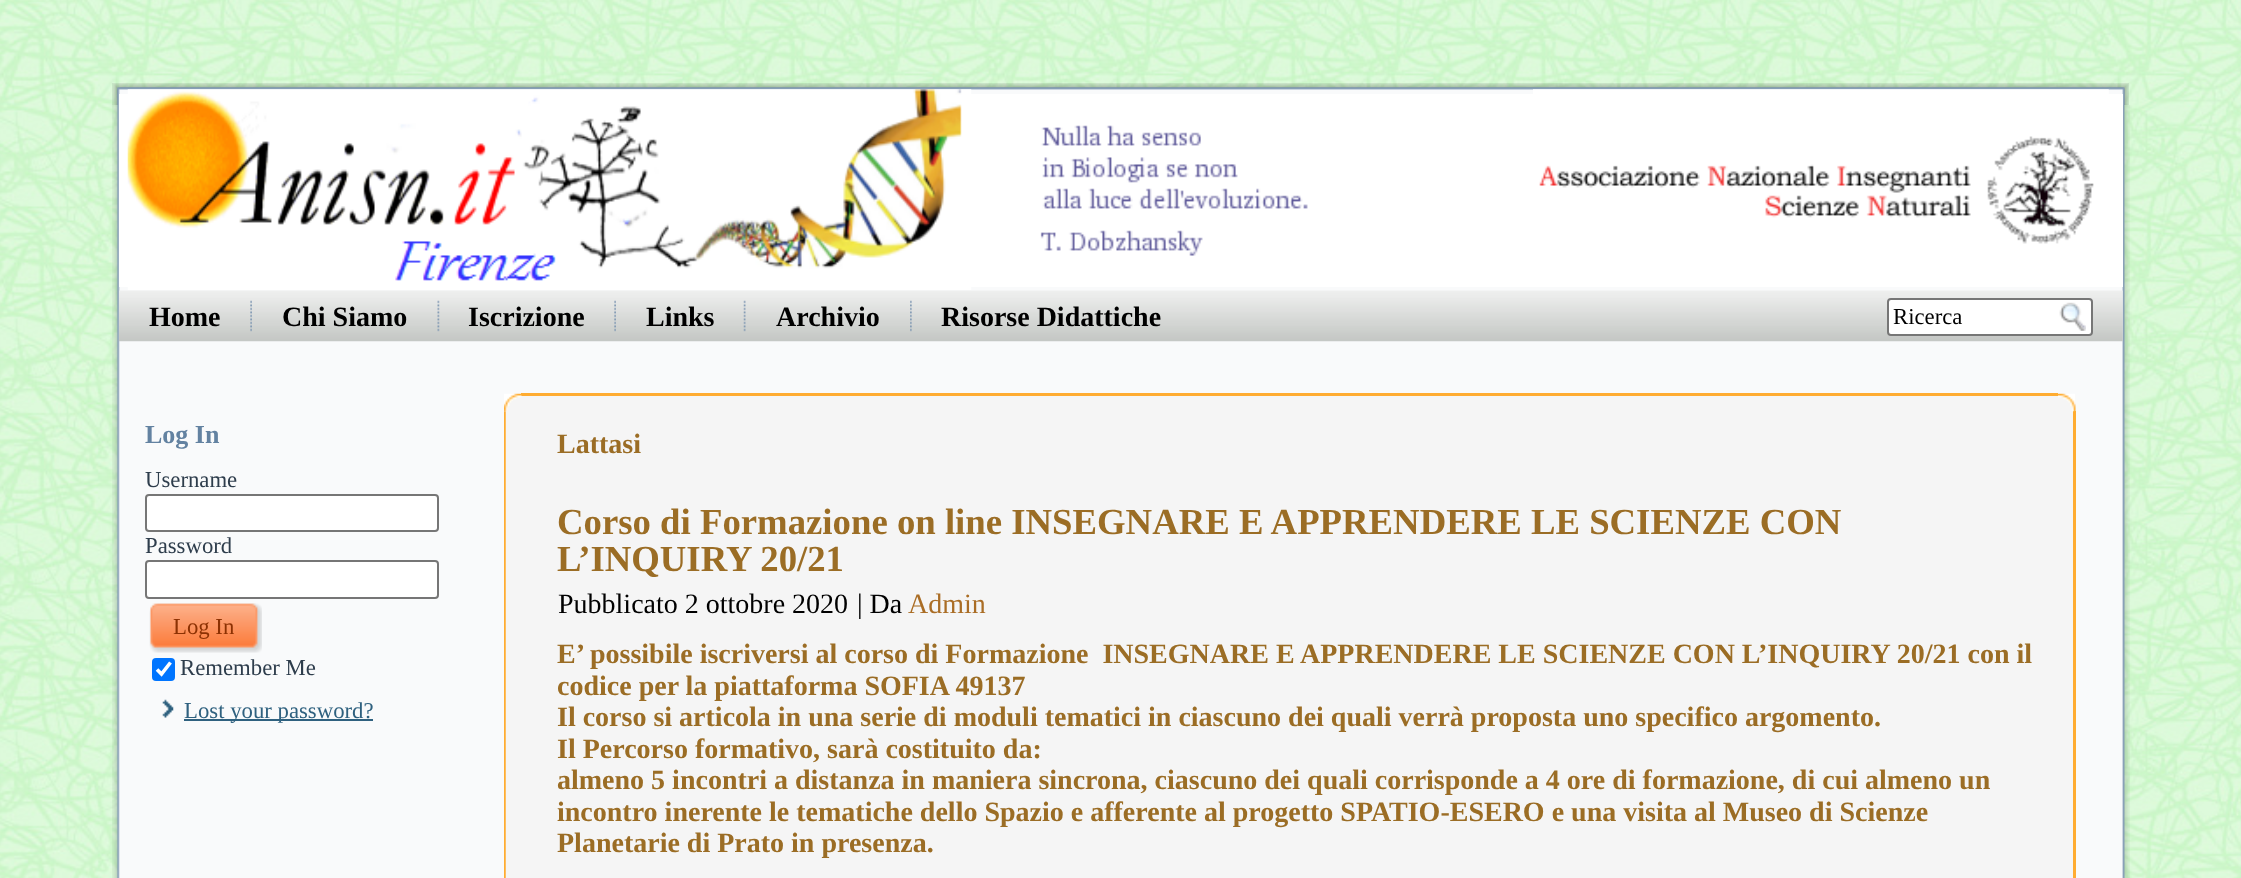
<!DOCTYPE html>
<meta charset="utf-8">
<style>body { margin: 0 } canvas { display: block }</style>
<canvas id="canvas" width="2241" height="878"></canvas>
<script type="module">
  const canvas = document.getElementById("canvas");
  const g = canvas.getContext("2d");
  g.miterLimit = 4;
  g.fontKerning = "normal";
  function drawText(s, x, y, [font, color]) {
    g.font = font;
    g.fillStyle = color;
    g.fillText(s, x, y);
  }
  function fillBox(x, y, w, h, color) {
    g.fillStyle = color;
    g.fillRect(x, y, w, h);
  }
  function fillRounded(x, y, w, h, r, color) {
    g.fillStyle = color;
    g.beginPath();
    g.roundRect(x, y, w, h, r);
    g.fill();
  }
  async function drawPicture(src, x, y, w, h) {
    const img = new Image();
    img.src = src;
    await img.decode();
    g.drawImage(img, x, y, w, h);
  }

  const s1 = ["bold 28px Liberation Serif", "#000000"];
  const s2 = ["22.75px Liberation Serif", "#000000"];
  const s3 = ["bold 26px Liberation Serif", "#6382A1"];
  const s4 = ["22.75px Liberation Serif", "#2E3D4C"];
  const s5 = ["22.75px Liberation Serif", "#8C3103"];
  const s6 = ["22.75px Liberation Serif", "#2F617F"];
  const s7 = ["bold 28px Liberation Serif", "#9B6D25"];
  const s8 = ["bold 36.75px Liberation Serif", "#9B6D25"];
  const s9 = ["28px Liberation Serif", "#000000"];
  const s10 = ["28px Liberation Serif", "#AA6D25"];

  fillBox(0, 0, 2241, 878, "#FFFFFF");
  await drawPicture("pic1.png", 0, 0, 2241, 878);
  await drawPicture("pic2.png", 112, 83, 1995, 22);
  await drawPicture("pic3.png", 112, 83, 1995, 22);
  await drawPicture("pic4.png", 2107, 83, 22, 22);
  await drawPicture("pic5.png", 2107, 83, 22, 22);
  await drawPicture("pic9.png", 112, 105, 1995, 773);
  await drawPicture("pic10.png", 2107, 105, 23, 773);
  fillBox(119, 94, 2004, 193, "#FFFFFF");
  await drawPicture("pic6.png", 127, 89, 845, 201);
  await drawPicture("pic7.png", 1533, 89, 576, 155);
  await drawPicture("pic8.png", 1040, 125, 268, 131);
  await drawPicture("pic11.png", 119, 290, 2004, 52);
  drawText("Home", 149, 326, s1);
  await drawPicture("pic12.png", 250, 300, 2, 32);
  drawText("Chi Siamo", 282, 326, s1);
  await drawPicture("pic13.png", 437, 300, 3, 32);
  drawText("Iscrizione", 468, 326, s1);
  await drawPicture("pic12.png", 614, 300, 2, 32);
  drawText("Links", 646, 326, s1);
  await drawPicture("pic14.png", 743, 300, 3, 32);
  drawText("Archivio", 776, 326, s1);
  await drawPicture("pic15.png", 910, 300, 2, 32);
  drawText("Risorse Didattiche", 941, 326, s1);
  g.fillStyle = "#FFFFFF";
  g.beginPath();
  g.roundRect(1888, 299, 204, 36, 3);
  g.fill();
  g.strokeStyle = "#767676";
  g.lineWidth = 2;
  g.stroke();
  drawText("Ricerca", 1893, 324, s2);
  await drawPicture("pic16.png", 2059, 302, 27, 29);
  drawText("Log In", 145, 443, s3);
  drawText("Username", 145, 487, s4);
  g.fillStyle = "#FFFFFF";
  g.beginPath();
  g.roundRect(146, 495, 292, 36, 3);
  g.fill();
  g.stroke();
  drawText("Password", 145, 553, s4);
  g.fillStyle = "#FFFFFF";
  g.beginPath();
  g.roundRect(146, 561, 292, 37, 3);
  g.fill();
  g.stroke();
  await drawPicture("pic17.png", 149, 603, 96, 50);
  await drawPicture("pic18.png", 245, 603, 17, 50);
  drawText("Log In", 173, 634, s5);
  fillRounded(152, 658, 23, 23, 4, "#0075FF");
  g.beginPath();
  g.moveTo(157, 669.5);
  g.lineTo(161.5, 674);
  g.lineTo(170.5, 662.5);
  g.strokeStyle = "#FFFFFF";
  g.lineWidth = 3.6;
  g.stroke();
  drawText("Remember Me", 180, 675, s4);
  await drawPicture("pic19.png", 162, 699, 12, 19);
  fillBox(184, 719, 189, 2, "#2F617F");
  drawText("Lost your password?", 184, 718, s6);
  fillBox(504, 394, 1572, 484, "#F5F5F5");
  fillBox(521, 393, 1537, 3, "#FFAC31");
  await drawPicture("pic22.png", 504, 411, 2, 467);
  await drawPicture("pic20.png", 504, 393, 18, 19);
  fillBox(2073, 411, 3, 467, "#FFAC31");
  await drawPicture("pic21.png", 2058, 393, 18, 19);
  drawText("Lattasi", 557, 453, s7);
  drawText("Corso di Formazione on line INSEGNARE E APPRENDERE LE SCIENZE CON", 557, 534, s8);
  drawText("L’INQUIRY 20/21", 557, 571, s8);
  drawText("Pubblicato 2 ottobre 2020", 558, 613, s9);
  drawText("| Da", 857, 613, s9);
  drawText("Admin", 908, 613, s10);
  drawText("E’ possibile iscriversi al corso di Formazione  INSEGNARE E APPRENDERE LE SCIENZE CON L’INQUIRY 20/21 con il", 557, 663, s7);
  drawText("codice per la piattaforma SOFIA 49137", 557, 695, s7);
  drawText("Il corso si articola in una serie di moduli tematici in ciascuno dei quali verrà proposta uno specifico argomento.", 557, 726, s7);
  drawText("Il Percorso formativo, sarà costituito da:", 557, 758, s7);
  drawText("almeno 5 incontri a distanza in maniera sincrona, ciascuno dei quali corrisponde a 4 ore di formazione, di cui almeno un", 557, 789, s7);
  drawText("incontro inerente le tematiche dello Spazio e afferente al progetto SPATIO-ESERO e una visita al Museo di Scienze", 557, 821, s7);
  drawText("Planetarie di Prato in presenza.", 557, 852, s7);
</script>
